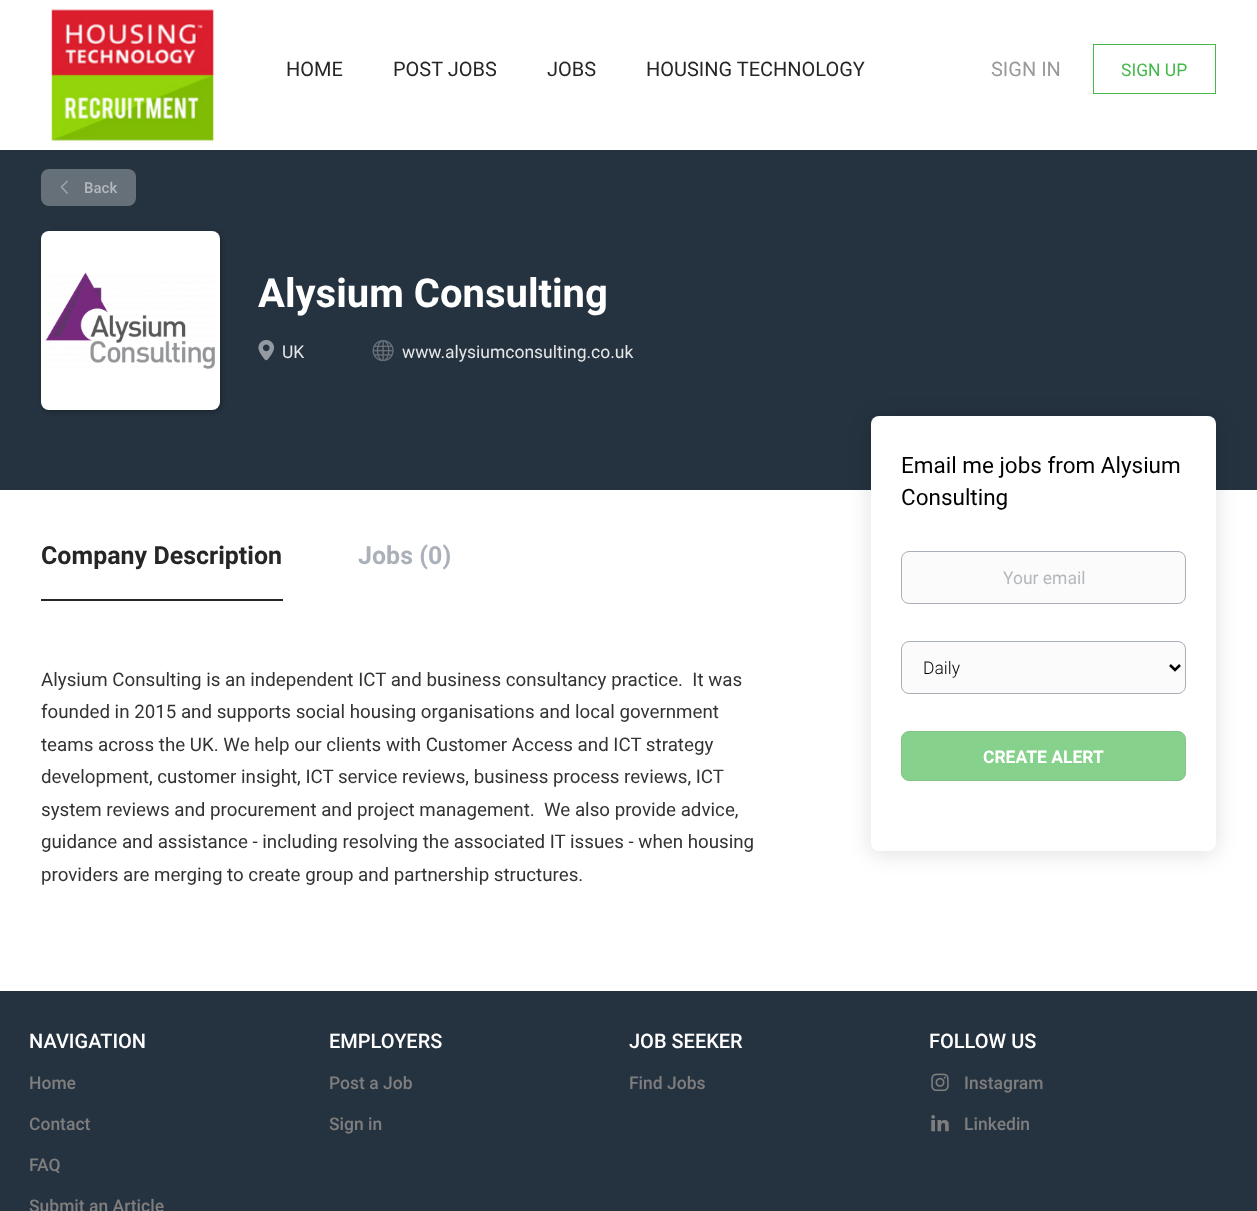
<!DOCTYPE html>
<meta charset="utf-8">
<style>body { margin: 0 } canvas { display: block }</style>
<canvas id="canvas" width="1257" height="1211"></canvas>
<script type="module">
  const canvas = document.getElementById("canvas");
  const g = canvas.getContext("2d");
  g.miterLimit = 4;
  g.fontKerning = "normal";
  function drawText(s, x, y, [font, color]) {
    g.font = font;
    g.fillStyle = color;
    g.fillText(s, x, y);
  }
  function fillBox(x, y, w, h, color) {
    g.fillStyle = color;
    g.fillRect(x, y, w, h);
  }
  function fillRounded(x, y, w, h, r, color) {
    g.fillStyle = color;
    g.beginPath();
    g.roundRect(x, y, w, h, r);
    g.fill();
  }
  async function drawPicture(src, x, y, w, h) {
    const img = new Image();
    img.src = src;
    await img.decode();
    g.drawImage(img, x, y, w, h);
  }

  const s1 = ["20px Roboto", "#262626"];
  const s2 = ["20px Roboto", "#999999"];
  const s3 = ["17.5px Roboto", "#45B84C"];
  const s4 = ["500 15px Roboto", "#B3B8BC"];
  const s5 = ["bold 40px Roboto", "#FFFFFF"];
  const s6 = ["17.5px Roboto", "#E5E6E8"];
  const s7 = ["bold 25px Roboto", "#262626"];
  const s8 = ["bold 25px Roboto", "#ABB1B9"];
  const s9 = ["18.75px Roboto", "#333333"];
  const s10 = ["22.5px Roboto", "#000000"];
  const s11 = ["17.5px Roboto", "#B3B8BC"];
  const s12 = ["300 17.5px Roboto", "#000000"];
  const s13 = ["bold 17.5px Roboto", "#FFFFFF"];
  const s14 = ["500 20px Roboto", "#FFFFFF"];
  const s15 = ["500 17.5px Roboto", "#7E7E7E"];

  fillBox(0, 0, 1257, 1211, "#FFFFFF");
  await drawPicture("pic1.png", 51, 9, 164, 134);
  drawText("HOME", 286, 76, s1);
  drawText("POST JOBS", 393, 76, s1);
  drawText("JOBS", 547, 76, s1);
  drawText("HOUSING TECHNOLOGY", 646, 76, s1);
  drawText("SIGN IN", 991, 76, s2);
  g.strokeStyle = "#45B84C";
  g.strokeRect(1093.5, 44.5, 122, 49);
  drawText("SIGN UP", 1121, 76, s3);
  fillBox(0, 150, 1257, 340, "#25323F");
  fillRounded(41, 169, 95, 37, 8, "#667079");
  g.beginPath();
  g.moveTo(67, 181.5);
  g.lineTo(61.5, 187);
  g.lineTo(67, 193);
  g.strokeStyle = "#9DA4A9";
  g.lineWidth = 1.7;
  g.lineCap = "round";
  g.lineJoin = "round";
  g.stroke();
  drawText("Back", 84, 193, s4);
  g.fillStyle = "rgba(0, 0, 0, 0.3)";
  g.filter = "blur(2.5px)";
  g.beginPath();
  g.roundRect(43, 233, 178, 178, 8);
  g.fill();
  g.filter = "none";
  fillRounded(41, 231, 179, 179, 8, "#FFFFFF");
  await drawPicture("pic2.png", 45, 272, 170, 97);
  drawText("Alysium Consulting", 258, 307, s5);
  await drawPicture("pic3.png", 258, 340, 17, 21);
  drawText("UK", 282, 358, s6);
  await drawPicture("pic4.png", 372, 340, 22, 21);
  drawText("www.alysiumconsulting.co.uk", 402, 358, s6);
  fillBox(41, 599, 242, 2, "#262626");
  drawText("Company Description", 41, 564, s7);
  drawText("Jobs (0)", 358, 564, s8);
  drawText("Alysium Consulting is an independent ICT and business consultancy practice.  It was", 41, 686, s9);
  drawText("founded in 2015 and supports social housing organisations and local government", 41, 718, s9);
  drawText("teams across the UK. We help our clients with Customer Access and ICT strategy", 41, 751, s9);
  drawText("development, customer insight, ICT service reviews, business process reviews, ICT", 41, 783, s9);
  drawText("system reviews and procurement and project management.  We also provide advice,", 41, 816, s9);
  drawText("guidance and assistance - including resolving the associated IT issues - when housing", 41, 848, s9);
  drawText("providers are merging to create group and partnership structures.", 41, 881, s9);
  g.fillStyle = "rgba(0, 0, 0, 0.12)";
  g.filter = "blur(11px)";
  g.beginPath();
  g.roundRect(871, 419, 345, 435, 8);
  g.fill();
  g.filter = "none";
  fillRounded(871, 416, 345, 435, 8, "#FFFFFF");
  drawText("Email me jobs from Alysium", 901, 473, s10);
  drawText("Consulting", 901, 505, s10);
  g.fillStyle = "#FBFBFB";
  g.beginPath();
  g.roundRect(901.5, 551.5, 284, 52, 7.5);
  g.fill();
  g.strokeStyle = "#A8AFB7";
  g.lineWidth = 1;
  g.lineJoin = "miter";
  g.stroke();
  drawText("Your email", 1003, 584, s11);
  g.fillStyle = "#FBFBFB";
  g.beginPath();
  g.roundRect(901.5, 641.5, 284, 52, 7.5);
  g.fill();
  g.stroke();
  g.beginPath();
  g.moveTo(1170, 665);
  g.lineTo(1175, 670);
  g.lineTo(1180, 665);
  g.strokeStyle = "#000000";
  g.lineWidth = 2.5;
  g.lineCap = "butt";
  g.stroke();
  drawText("Daily", 923, 674, s12);
  g.fillStyle = "#86D18B";
  g.beginPath();
  g.roundRect(901.5, 731.5, 284, 49, 7.5);
  g.fill();
  g.strokeStyle = "#82C585";
  g.lineWidth = 1;
  g.stroke();
  drawText("CREATE ALERT", 983, 763, s13);
  fillBox(0, 991, 1257, 220, "#25323F");
  drawText("NAVIGATION", 29, 1048, s14);
  drawText("Home", 29, 1089, s15);
  drawText("Contact", 29, 1130, s15);
  drawText("FAQ", 29, 1171, s15);
  drawText("Submit an Article", 29, 1212, s15);
  drawText("EMPLOYERS", 329, 1048, s14);
  drawText("Post a Job", 329, 1089, s15);
  drawText("Sign in", 329, 1130, s15);
  drawText("JOB SEEKER", 629, 1048, s14);
  drawText("Find Jobs", 629, 1089, s15);
  drawText("FOLLOW US", 929, 1048, s14);
  await drawPicture("pic5.png", 931, 1073, 18, 19);
  drawText("Instagram", 964, 1089, s15);
  await drawPicture("pic6.png", 931, 1115, 18, 17);
  drawText("Linkedin", 964, 1130, s15);
</script>
